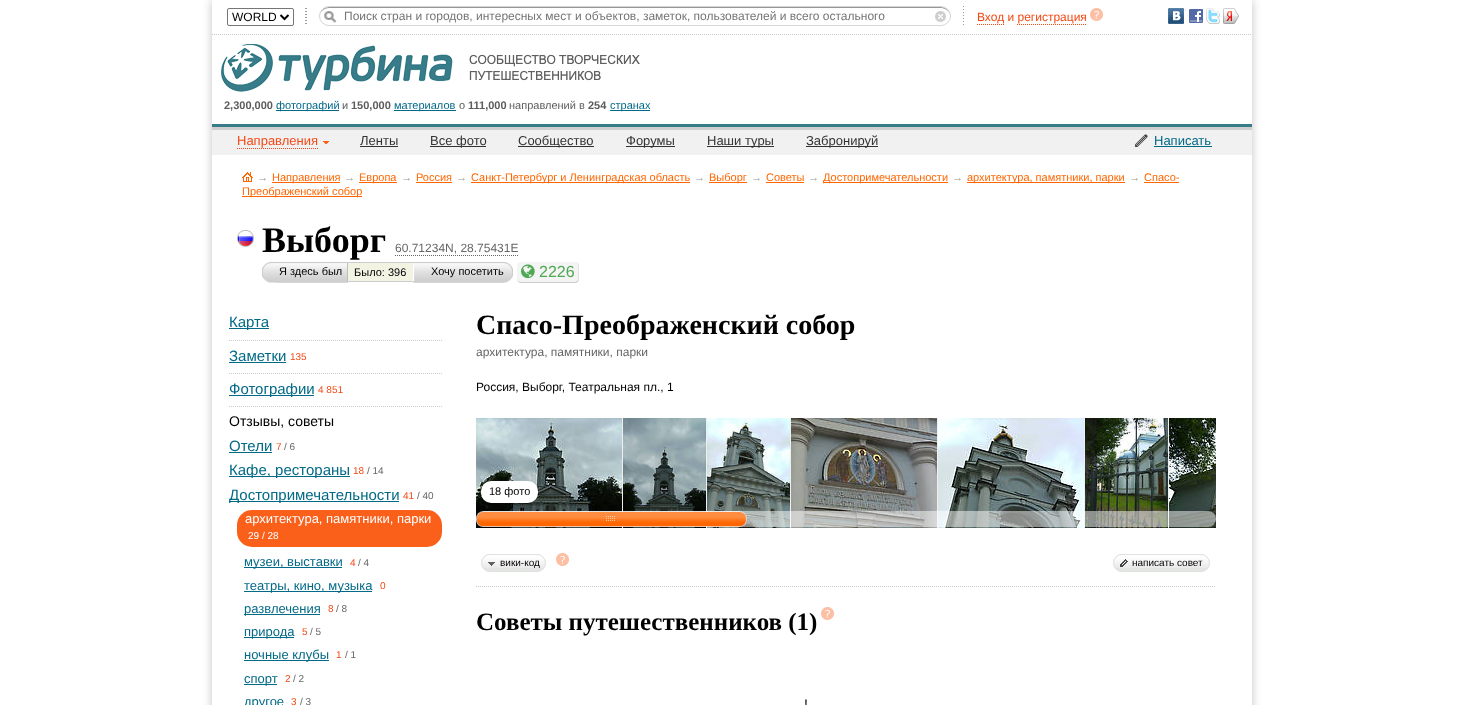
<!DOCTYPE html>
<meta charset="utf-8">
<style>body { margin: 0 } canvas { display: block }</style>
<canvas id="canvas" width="1463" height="705"></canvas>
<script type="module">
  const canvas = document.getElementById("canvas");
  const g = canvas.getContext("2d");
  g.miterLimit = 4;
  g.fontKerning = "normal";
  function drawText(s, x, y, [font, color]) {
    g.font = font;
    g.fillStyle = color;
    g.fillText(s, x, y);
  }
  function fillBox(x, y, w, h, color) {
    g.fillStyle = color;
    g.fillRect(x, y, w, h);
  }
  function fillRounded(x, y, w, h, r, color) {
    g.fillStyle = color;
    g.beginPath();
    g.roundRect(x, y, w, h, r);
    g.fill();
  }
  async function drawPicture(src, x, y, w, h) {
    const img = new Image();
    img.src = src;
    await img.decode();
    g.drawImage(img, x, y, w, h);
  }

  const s1 = ["12px Liberation Sans", "#000000"];
  const s2 = ["12px Liberation Sans", "#757575"];
  const s3 = ["12px Liberation Sans", "#F34915"];
  const s4 = ["bold 11px Liberation Sans", "#5C5C5C"];
  const s5 = ["11px Liberation Sans", "#026987"];
  const s6 = ["11px Liberation Sans", "#5C5C5C"];
  const s7 = ["13px Liberation Sans", "#F34915"];
  const s8 = ["13px Liberation Sans", "#333333"];
  const s9 = ["13px Liberation Sans", "#026987"];
  const s10 = ["11px Liberation Sans", "#999999"];
  const s11 = ["11px Liberation Sans", "#FF6600"];
  const s12 = ["bold 36px Liberation Serif", "#000000"];
  const s13 = ["12px Liberation Sans", "#666666"];
  const s14 = ["11px Liberation Sans", "#000000"];
  const s15 = ["16px Liberation Sans", "#51A854"];
  const s16 = ["15px Liberation Sans", "#026987"];
  const s17 = ["10px Liberation Sans", "#F34915"];
  const s18 = ["14px Liberation Sans", "#000000"];
  const s19 = ["10px Liberation Sans", "#666666"];
  const s20 = ["13px Liberation Sans", "#FFFFFF"];
  const s21 = ["10px Liberation Sans", "#FFFFFF"];
  const s22 = ["bold 28px Liberation Serif", "#000000"];
  const s23 = ["10px Liberation Sans", "#000000"];
  const s24 = ["bold 25px Liberation Serif", "#000000"];

  fillBox(0, 0, 1463, 705, "#FFFFFF");
  g.save();
  g.beginPath();
  g.moveTo(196, 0);
  g.lineTo(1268, 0);
  g.lineTo(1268, 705);
  g.lineTo(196, 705);
  g.closePath();
  g.moveTo(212, 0);
  g.lineTo(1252, 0);
  g.lineTo(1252, 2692);
  g.lineTo(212, 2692);
  g.closePath();
  g.clip("evenodd");
  g.fillStyle = "rgba(0, 0, 0, 0.24)";
  g.filter = "blur(5px)";
  g.beginPath();
  g.rect(212, 0, 1040, 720);
  g.fill();
  g.filter = "none";
  g.restore();
  await drawPicture("pic1.png", 212, 34, 1039, 1);
  g.beginPath();
  g.roundRect(227.5, 8.5, 66, 17, 1.5);
  g.strokeStyle = "#767676";
  g.stroke();
  g.beginPath();
  g.moveTo(280.5, 15);
  g.lineTo(284.5, 19);
  g.lineTo(288.5, 15);
  g.strokeStyle = "#000000";
  g.lineWidth = 2;
  g.stroke();
  drawText("WORLD", 232, 21, s1);
  await drawPicture("pic2.png", 305, 8, 2, 16);
  await drawPicture("pic3.png", 963, 6, 1, 19);
  await drawPicture("pic4.png", 324, 11, 13, 12);
  g.fillStyle = "#969696";
  g.beginPath();
  g.moveTo(329, 8);
  g.lineTo(941, 8);
  g.bezierCurveTo(946, 8, 950, 12, 950, 16);
  g.bezierCurveTo(950, 11, 946, 7, 941, 7);
  g.lineTo(329, 7);
  g.bezierCurveTo(324, 7, 320, 11, 320, 16);
  g.bezierCurveTo(320, 12, 324, 8, 329, 8);
  g.closePath();
  g.fill();
  g.beginPath();
  g.roundRect(319.5, 6.5, 631, 19, 9.5);
  g.strokeStyle = "#D6D6D6";
  g.lineWidth = 1;
  g.stroke();
  drawText("Поиск стран и городов, интересных мест и объектов, заметок, пользователей и всего остального", 344, 20, s2);
  await drawPicture("pic5.png", 935, 11, 11, 11);
  drawText("Вход и регистрация", 977, 21, s3);
  g.beginPath();
  g.moveTo(977, 24.5);
  g.lineTo(1004, 24.5);
  g.strokeStyle = "#F34915";
  g.setLineDash([1, 1]);
  g.stroke();
  await drawPicture("pic6.png", 1090, 8, 13, 13);
  g.beginPath();
  g.moveTo(1017, 24.5);
  g.lineTo(1086, 24.5);
  g.stroke();
  await drawPicture("pic7.png", 1168, 8, 71, 16);
  await drawPicture("pic8.png", 221, 44, 419, 48);
  drawText("2,300,000", 224, 109, s4);
  fillBox(276, 110, 63, 1, "#026987");
  drawText("фотографий", 276, 109, s5);
  drawText("и", 342, 109, s6);
  drawText("150,000", 351, 109, s4);
  fillBox(394, 110, 62, 1, "#026987");
  drawText("материалов", 394, 109, s5);
  drawText("о", 459, 109, s6);
  drawText("111,000", 468, 109, s4);
  drawText("направлений в", 509, 109, s6);
  drawText("254", 588, 109, s4);
  fillBox(610, 110, 40, 1, "#026987");
  drawText("странах", 610, 109, s5);
  fillBox(212, 130, 1040, 25, "#F1F1F1");
  fillBox(212, 127, 1040, 3, "#CFCFCF");
  fillBox(212, 124, 1040, 3, "#377C88");
  drawText("Направления", 237, 145, s7);
  g.beginPath();
  g.moveTo(237, 148.5);
  g.lineTo(318, 148.5);
  g.stroke();
  await drawPicture("pic9.png", 323, 141, 7, 3);
  drawText("Ленты", 360, 145, s8);
  fillBox(360, 146, 38, 1, "#333333");
  fillBox(430, 146, 56, 1, "#333333");
  drawText("Все фото", 430, 145, s8);
  fillBox(518, 146, 76, 1, "#333333");
  drawText("Сообщество", 518, 145, s8);
  fillBox(626, 146, 49, 1, "#333333");
  drawText("Форумы", 626, 145, s8);
  fillBox(707, 146, 67, 1, "#333333");
  drawText("Наши туры", 707, 145, s8);
  fillBox(806, 146, 72, 1, "#333333");
  drawText("Забронируй", 806, 145, s8);
  await drawPicture("pic10.png", 1135, 134, 13, 13);
  drawText("Написать", 1154, 145, s9);
  fillBox(1154, 146, 58, 1, "#026987");
  await drawPicture("pic11.png", 242, 172, 11, 10);
  drawText("→", 257, 181, s10);
  fillBox(272, 182, 68, 1, "#FF6600");
  drawText("Направления", 272, 181, s11);
  drawText("→", 344, 181, s10);
  fillBox(359, 182, 38, 1, "#FF6600");
  drawText("Европа", 359, 181, s11);
  drawText("→", 401, 181, s10);
  drawText("Россия", 416, 181, s11);
  fillBox(416, 182, 36, 1, "#FF6600");
  drawText("→", 456, 181, s10);
  fillBox(471, 182, 219, 1, "#FF6600");
  drawText("Санкт-Петербург и Ленинградская область", 471, 181, s11);
  drawText("→", 694, 181, s10);
  fillBox(709, 182, 38, 1, "#FF6600");
  drawText("Выборг", 709, 181, s11);
  drawText("→", 751, 181, s10);
  drawText("Советы", 766, 181, s11);
  fillBox(766, 182, 38, 1, "#FF6600");
  drawText("→", 808, 181, s10);
  fillBox(823, 182, 125, 1, "#FF6600");
  drawText("Достопримечательности", 823, 181, s11);
  drawText("→", 952, 181, s10);
  fillBox(967, 182, 158, 1, "#FF6600");
  drawText("архитектура, памятники, парки", 967, 181, s11);
  drawText("→", 1129, 181, s10);
  drawText("Спасо-", 1144, 181, s11);
  fillBox(1144, 182, 35, 1, "#FF6600");
  fillBox(242, 196, 120, 1, "#FF6600");
  drawText("Преображенский собор", 242, 195, s11);
  await drawPicture("pic12.png", 237, 230, 17, 17);
  drawText("Выборг", 262, 252, s12);
  drawText("60.71234N, 28.75431E", 395, 252, s13);
  g.beginPath();
  g.moveTo(395, 255.5);
  g.lineTo(518, 255.5);
  g.strokeStyle = "#666666";
  g.stroke();
  await drawPicture("pic13.png", 262, 262, 86, 21);
  await drawPicture("pic14.png", 276, 263, 72, 20);
  drawText("Я здесь был", 279, 275, s14);
  fillBox(348, 263, 65, 18, "#F2F3E3");
  fillBox(348, 262, 65, 1, "#CCCCCC");
  fillBox(348, 281, 65, 1, "#CCCCCC");
  drawText("Было: 396", 354, 276, s14);
  await drawPicture("pic15.png", 413, 262, 100, 21);
  await drawPicture("pic16.png", 413, 263, 91, 20);
  drawText("Хочу посетить", 431, 275, s14);
  fillRounded(517, 262, 62, 21, 4, "#F4F4F4");
  g.fillStyle = "#DDDDDD";
  g.beginPath();
  g.moveTo(579, 266);
  g.bezierCurveTo(579, 264, 577, 262, 575, 262);
  g.bezierCurveTo(579.5, 262, 578, 270, 578, 272.5);
  g.bezierCurveTo(578, 274, 579, 279.5, 577, 281);
  g.lineTo(578, 282);
  g.bezierCurveTo(578.5, 281, 579, 280, 579, 279);
  g.closePath();
  g.fill();
  g.fillStyle = "#CCCCCC";
  g.beginPath();
  g.moveTo(521, 283);
  g.lineTo(575, 283);
  g.lineTo(578, 282);
  g.lineTo(577, 281);
  g.lineTo(575, 282);
  g.lineTo(521, 282);
  g.bezierCurveTo(519, 282, 517, 281, 517, 279);
  g.bezierCurveTo(517, 281, 519, 283, 521, 283);
  g.closePath();
  g.fill();
  await drawPicture("pic17.png", 521, 264, 14, 15);
  drawText("2226", 539, 277, s15);
  await drawPicture("pic18.png", 229, 340, 213, 1);
  fillBox(229, 328, 40, 1, "#026987");
  drawText("Карта", 229, 327, s16);
  await drawPicture("pic18.png", 229, 373, 213, 1);
  drawText("Заметки", 229, 361, s16);
  fillBox(229, 362, 57, 1, "#026987");
  drawText("135", 290, 360, s17);
  await drawPicture("pic18.png", 229, 406, 213, 1);
  fillBox(229, 395, 85, 1, "#026987");
  drawText("Фотографии", 229, 394, s16);
  drawText("4 851", 318, 393, s17);
  drawText("Отзывы, советы", 229, 426, s18);
  drawText("Отели", 229, 451, s16);
  fillBox(229, 452, 43, 1, "#026987");
  drawText("7", 276, 450, s17);
  drawText("/ 6", 284, 450, s19);
  fillBox(229, 476, 121, 1, "#026987");
  drawText("Кафе, рестораны", 229, 475, s16);
  drawText("18", 353, 474, s17);
  drawText("/ 14", 367, 474, s19);
  fillBox(229, 501, 170, 1, "#026987");
  drawText("Достопримечательности", 229, 500, s16);
  drawText("41", 403, 499, s17);
  drawText("/ 40", 417, 499, s19);
  fillRounded(237, 510, 205, 37, 15, "#FB601B");
  drawText("архитектура, памятники, парки", 245, 523, s20);
  drawText("29 / 28", 248, 539, s21);
  fillBox(244, 567, 98, 1, "#026987");
  drawText("музеи, выставки", 244, 566, s9);
  drawText("4", 350, 566, s17);
  drawText("/ 4", 358, 566, s19);
  fillBox(244, 591, 128, 1, "#026987");
  drawText("театры, кино, музыка", 244, 590, s9);
  drawText("0", 380, 589, s17);
  fillBox(244, 614, 76, 1, "#026987");
  drawText("развлечения", 244, 613, s9);
  drawText("8", 328, 612, s17);
  drawText("/ 8", 336, 612, s19);
  fillBox(244, 637, 50, 1, "#026987");
  drawText("природа", 244, 636, s9);
  drawText("5", 302, 635, s17);
  drawText("/ 5", 310, 635, s19);
  fillBox(244, 660, 85, 1, "#026987");
  drawText("ночные клубы", 244, 659, s9);
  drawText("1", 336, 658, s17);
  drawText("/ 1", 345, 658, s19);
  fillBox(244, 684, 33, 1, "#026987");
  drawText("спорт", 244, 683, s9);
  drawText("2", 285, 682, s17);
  drawText("/ 2", 293, 682, s19);
  drawText("другое", 244, 706, s9);
  drawText("3", 291, 705, s17);
  drawText("/ 3", 300, 705, s19);
  drawText("Спасо-Преображенский собор", 476, 334, s22);
  drawText("архитектура, памятники, парки", 476, 356, s13);
  drawText("Россия, Выборг, Театральная пл., 1", 476, 391, s1);
  fillBox(622, 418, 547, 110, "#EFEFEF");
  await drawPicture("pic19.png", 476, 418, 146, 110);
  await drawPicture("pic20.png", 623, 418, 83, 110);
  await drawPicture("pic21.png", 707, 418, 83, 110);
  await drawPicture("pic22.png", 791, 418, 146, 110);
  await drawPicture("pic23.png", 938, 418, 146, 110);
  await drawPicture("pic24.png", 1085, 418, 83, 110);
  await drawPicture("pic25.png", 1169, 418, 47, 110);
  fillRounded(481, 481, 57, 22, 10, "#FFFFFF");
  drawText("18 фото", 489, 495, s14);
  await drawPicture("pic26.png", 476, 511, 740, 16);
  await drawPicture("pic27.png", 476, 511, 264, 16);
  await drawPicture("pic28.png", 483, 511, 264, 16);
  await drawPicture("pic29.png", 606, 516, 9, 5);
  await drawPicture("pic30.png", 476, 586, 739, 1);
  fillRounded(481, 554, 65, 18, 9, "#E4E6E4");
  await drawPicture("pic31.png", 481, 555, 65, 13);
  g.beginPath();
  g.roundRect(481.5, 554.5, 64, 17, 8.5);
  g.strokeStyle = "#E1E1E1";
  g.setLineDash([]);
  g.stroke();
  await drawPicture("pic32.png", 488, 562, 7, 4);
  drawText("вики-код", 500, 566, s23);
  await drawPicture("pic6.png", 556, 553, 13, 13);
  fillRounded(1113, 554, 97, 18, 9, "#E4E6E4");
  await drawPicture("pic33.png", 1113, 555, 97, 13);
  g.beginPath();
  g.roundRect(1113.5, 554.5, 96, 17, 8.5);
  g.stroke();
  await drawPicture("pic34.png", 1120, 559, 8, 8);
  drawText("написать совет", 1132, 566, s23);
  drawText("Советы путешественников (1)", 476, 630, s24);
  await drawPicture("pic6.png", 821, 607, 13, 13);
  drawText("!", 804, 709, s18);
</script>
